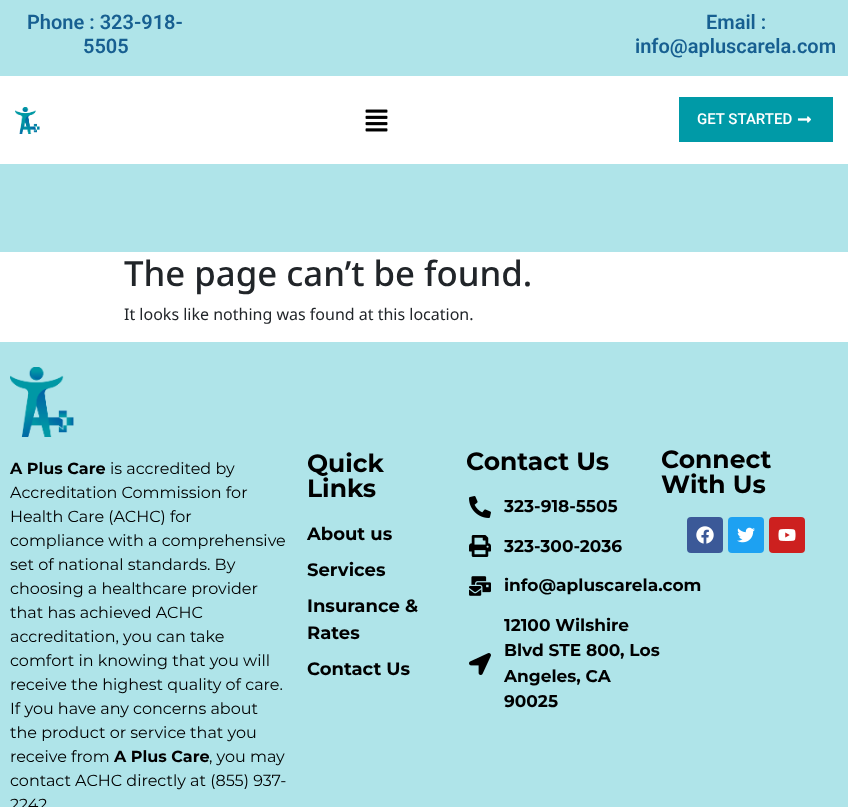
<!DOCTYPE html>
<meta charset="utf-8">
<style>body { margin: 0 } canvas { display: block }</style>
<canvas id="canvas" width="848" height="807"></canvas>
<script type="module">
  const canvas = document.getElementById("canvas");
  const g = canvas.getContext("2d");
  g.miterLimit = 4;
  g.fontKerning = "normal";
  function drawText(s, x, y, [font, color]) {
    g.font = font;
    g.fillStyle = color;
    g.fillText(s, x, y);
  }
  function fillBox(x, y, w, h, color) {
    g.fillStyle = color;
    g.fillRect(x, y, w, h);
  }
  function fillRounded(x, y, w, h, r, color) {
    g.fillStyle = color;
    g.beginPath();
    g.roundRect(x, y, w, h, r);
    g.fill();
  }
  async function drawPicture(src, x, y, w, h) {
    const img = new Image();
    img.src = src;
    await img.decode();
    g.drawImage(img, x, y, w, h);
  }

  const s1 = ["600 20px Roboto", "#175F91"];
  const s2 = ["500 15px Roboto", "#FFFFFF"];
  const s3 = ["500 34.75px Noto Sans", "#212529"];
  const s4 = ["16px Noto Sans", "#212529"];
  const s5 = ["bold 16px Montserrat", "#000000"];
  const s6 = ["16px Montserrat", "#000000"];
  const s7 = ["bold 25px Montserrat", "#000000"];
  const s8 = ["bold 18px Montserrat", "#000000"];
  const s9 = ["bold 17px Montserrat", "#000000"];

  fillBox(0, 0, 848, 807, "#FFFFFF");
  fillBox(0, 0, 848, 76, "#AFE4E9");
  drawText("Phone : 323-918-", 27, 29, s1);
  drawText("5505", 83, 53, s1);
  drawText("Email :", 706, 29, s1);
  drawText("info@apluscarela.com", 635, 53, s1);
  await drawPicture("pic1.png", 15, 107, 25, 27);
  await drawPicture("pic2.png", 365, 109, 23, 23);
  fillBox(679, 97, 154, 45, "#009AA7");
  drawText("GET STARTED", 697, 124, s2);
  await drawPicture("pic3.png", 797, 116, 14, 7);
  fillBox(0, 164, 848, 88, "#AFE4E9");
  drawText("The page can’t be found.", 124, 286, s3);
  drawText("It looks like nothing was found at this location.", 124, 320, s4);
  fillBox(0, 342, 848, 465, "#AFE4E9");
  await drawPicture("pic4.png", 10, 367, 64, 70);
  drawText("A Plus Care", 10, 474, s5);
  drawText("is accredited by", 110, 474, s6);
  drawText("Accreditation Commission for", 10, 498, s6);
  drawText("Health Care (ACHC) for", 10, 522, s6);
  drawText("compliance with a comprehensive", 10, 546, s6);
  drawText("set of national standards. By", 10, 570, s6);
  drawText("choosing a healthcare provider", 10, 594, s6);
  drawText("that has achieved ACHC", 10, 618, s6);
  drawText("accreditation, you can take", 10, 642, s6);
  drawText("comfort in knowing that you will", 10, 666, s6);
  drawText("receive the highest quality of care.", 10, 690, s6);
  drawText("If you have any concerns about", 10, 714, s6);
  drawText("the product or service that you", 10, 738, s6);
  drawText("receive from", 10, 762, s6);
  drawText("A Plus Care", 114, 762, s5);
  drawText(", you may", 209, 762, s6);
  drawText("contact ACHC directly at (855) 937-", 10, 786, s6);
  drawText("2242", 10, 810, s6);
  drawText("Quick", 307, 472, s7);
  drawText("Links", 307, 497, s7);
  drawText("About us", 307, 540, s8);
  drawText("Services", 307, 576, s8);
  drawText("Insurance &", 307, 612, s8);
  drawText("Rates", 307, 639, s8);
  drawText("Contact Us", 307, 675, s8);
  drawText("Contact Us", 466, 470, s7);
  await drawPicture("pic5.png", 469, 496, 22, 22);
  drawText("323-918-5505", 504, 512, s9);
  await drawPicture("pic6.png", 469, 535, 22, 22);
  drawText("323-300-2036", 504, 552, s9);
  await drawPicture("pic7.png", 469, 576, 22, 20);
  drawText("info@apluscarela.com", 504, 591, s9);
  await drawPicture("pic8.png", 469, 653, 22, 22);
  drawText("12100 Wilshire", 504, 631, s9);
  drawText("Blvd STE 800, Los", 504, 656, s9);
  drawText("Angeles, CA", 504, 682, s9);
  drawText("90025", 504, 707, s9);
  drawText("Connect", 661, 468, s7);
  drawText("With Us", 661, 493, s7);
  fillRounded(687, 517, 36, 36, 4, "#3B5998");
  await drawPicture("pic9.png", 696, 526, 18, 18);
  fillRounded(728, 517, 36, 36, 4, "#1DA1F2");
  await drawPicture("pic10.png", 737, 527, 18, 16);
  fillRounded(769, 517, 36, 36, 4, "#CD201F");
  await drawPicture("pic11.png", 778, 529, 18, 12);
</script>
